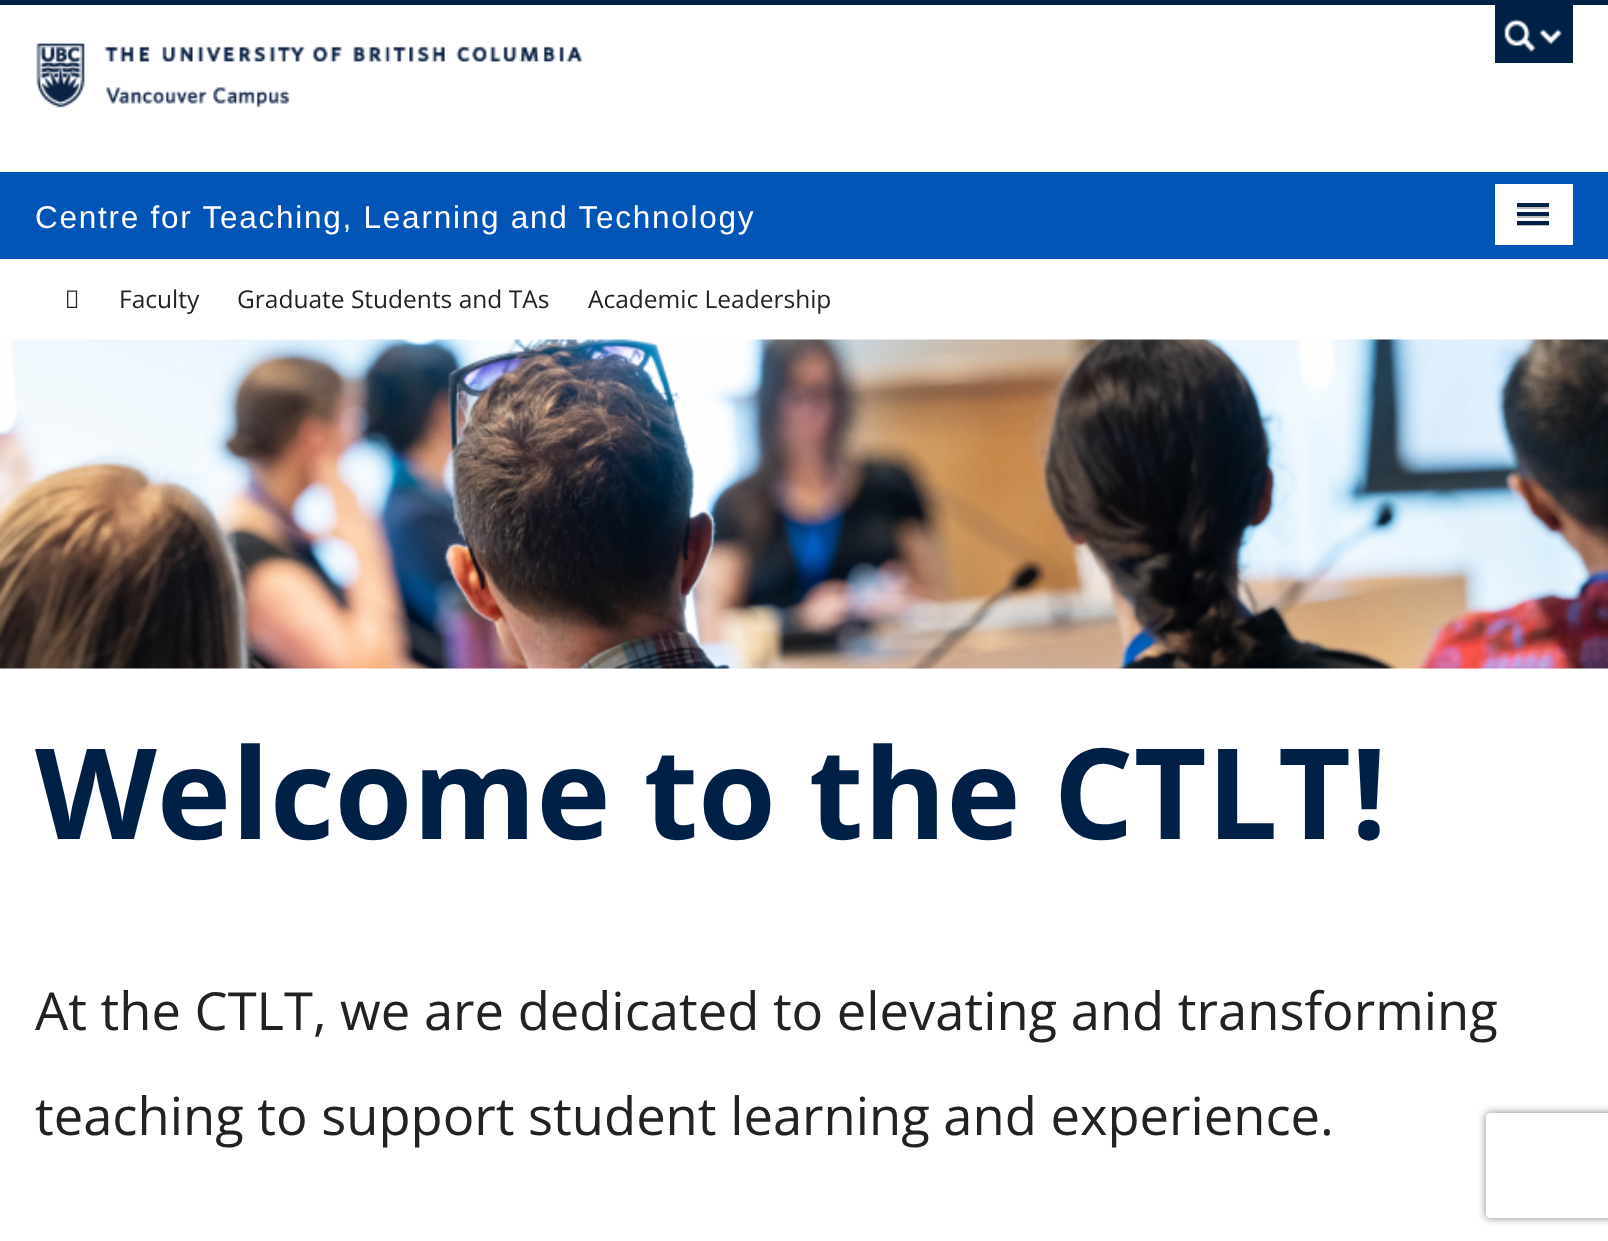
<!DOCTYPE html>
<meta charset="utf-8">
<style>body { margin: 0 } canvas { display: block }</style>
<canvas id="canvas" width="1608" height="1241"></canvas>
<script type="module">
  const canvas = document.getElementById("canvas");
  const g = canvas.getContext("2d");
  g.miterLimit = 4;
  g.fontKerning = "normal";
  function drawText(s, x, y, [font, color]) {
    g.font = font;
    g.fillStyle = color;
    g.fillText(s, x, y);
  }
  function fillBox(x, y, w, h, color) {
    g.fillStyle = color;
    g.fillRect(x, y, w, h);
  }
  async function drawPicture(src, x, y, w, h) {
    const img = new Image();
    img.src = src;
    await img.decode();
    g.drawImage(img, x, y, w, h);
  }

  const s1 = ["31.5px Liberation Sans", "#FFFFFF"];
  const s2 = ["24.5px Open Sans", "#222222"];
  const s3 = ["bold 126px Open Sans", "#002145"];
  const s4 = ["52.5px Open Sans", "#222222"];

  fillBox(0, 0, 1608, 1241, "#FFFFFF");
  fillBox(0, 0, 1608, 5, "#002145");
  await drawPicture("pic1.png", 36, 43, 547, 65);
  fillBox(1495, 5, 78, 58, "#002145");
  await drawPicture("pic2.png", 1504, 19, 58, 34);
  await drawPicture("pic3.png", 106, 87, 184, 21);
  fillBox(0, 172, 1608, 87, "#0055B7");
  g.letterSpacing = "1.75px";
  drawText("Centre for Teaching, Learning and Technology", 35, 228, s1);
  fillBox(1495, 184, 78, 61, "#FFFFFF");
  g.fillStyle = "#BFBFBF";
  g.beginPath();
  g.moveTo(1517, 205);
  g.lineTo(1517, 209);
  g.lineTo(1549, 209);
  g.lineTo(1549, 205);
  g.lineTo(1549, 206.5);
  g.lineTo(1517, 206.5);
  g.closePath();
  g.fill();
  fillBox(1517, 203, 32, 4, "#002145");
  g.fillStyle = "#BFBFBF";
  g.beginPath();
  g.moveTo(1517, 214);
  g.lineTo(1517, 218);
  g.lineTo(1549, 218);
  g.lineTo(1549, 214);
  g.lineTo(1549, 215);
  g.lineTo(1517, 215);
  g.closePath();
  g.fill();
  fillBox(1517, 212, 32, 4, "#002145");
  g.fillStyle = "#BFBFBF";
  g.beginPath();
  g.moveTo(1517, 222);
  g.lineTo(1517, 226);
  g.lineTo(1549, 226);
  g.lineTo(1549, 222);
  g.lineTo(1549, 224);
  g.lineTo(1517, 224);
  g.closePath();
  g.fill();
  fillBox(1517, 221, 32, 4, "#002145");
  await drawPicture("pic4.png", 67, 290, 11, 18);
  g.letterSpacing = "0px";
  drawText("Faculty", 119, 308, s2);
  drawText("Graduate Students and TAs", 237, 308, s2);
  drawText("Academic Leadership", 588, 308, s2);
  await drawPicture("pic5.png", 0, 339, 1608, 330);
  drawText("Welcome to the CTLT!", 35, 839, s3);
  drawText("At the CTLT, we are dedicated to elevating and transforming", 35, 1030, s4);
  drawText("teaching to support student learning and experience.", 35, 1135, s4);
  g.save();
  g.beginPath();
  g.moveTo(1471, 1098);
  g.lineTo(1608, 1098);
  g.lineTo(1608, 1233);
  g.lineTo(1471, 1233);
  g.closePath();
  g.moveTo(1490, 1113);
  g.lineTo(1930, 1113);
  g.bezierCurveTo(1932, 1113, 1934, 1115, 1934, 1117);
  g.lineTo(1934, 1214);
  g.bezierCurveTo(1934, 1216, 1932, 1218, 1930, 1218);
  g.lineTo(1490, 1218);
  g.bezierCurveTo(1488, 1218, 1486, 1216, 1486, 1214);
  g.lineTo(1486, 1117);
  g.bezierCurveTo(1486, 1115, 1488, 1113, 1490, 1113);
  g.closePath();
  g.clip("evenodd");
  g.fillStyle = "#808080";
  g.filter = "blur(4.5px)";
  g.beginPath();
  g.roundRect(1486, 1113, 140, 105, 4);
  g.fill();
  g.filter = "none";
  g.restore();
</script>
